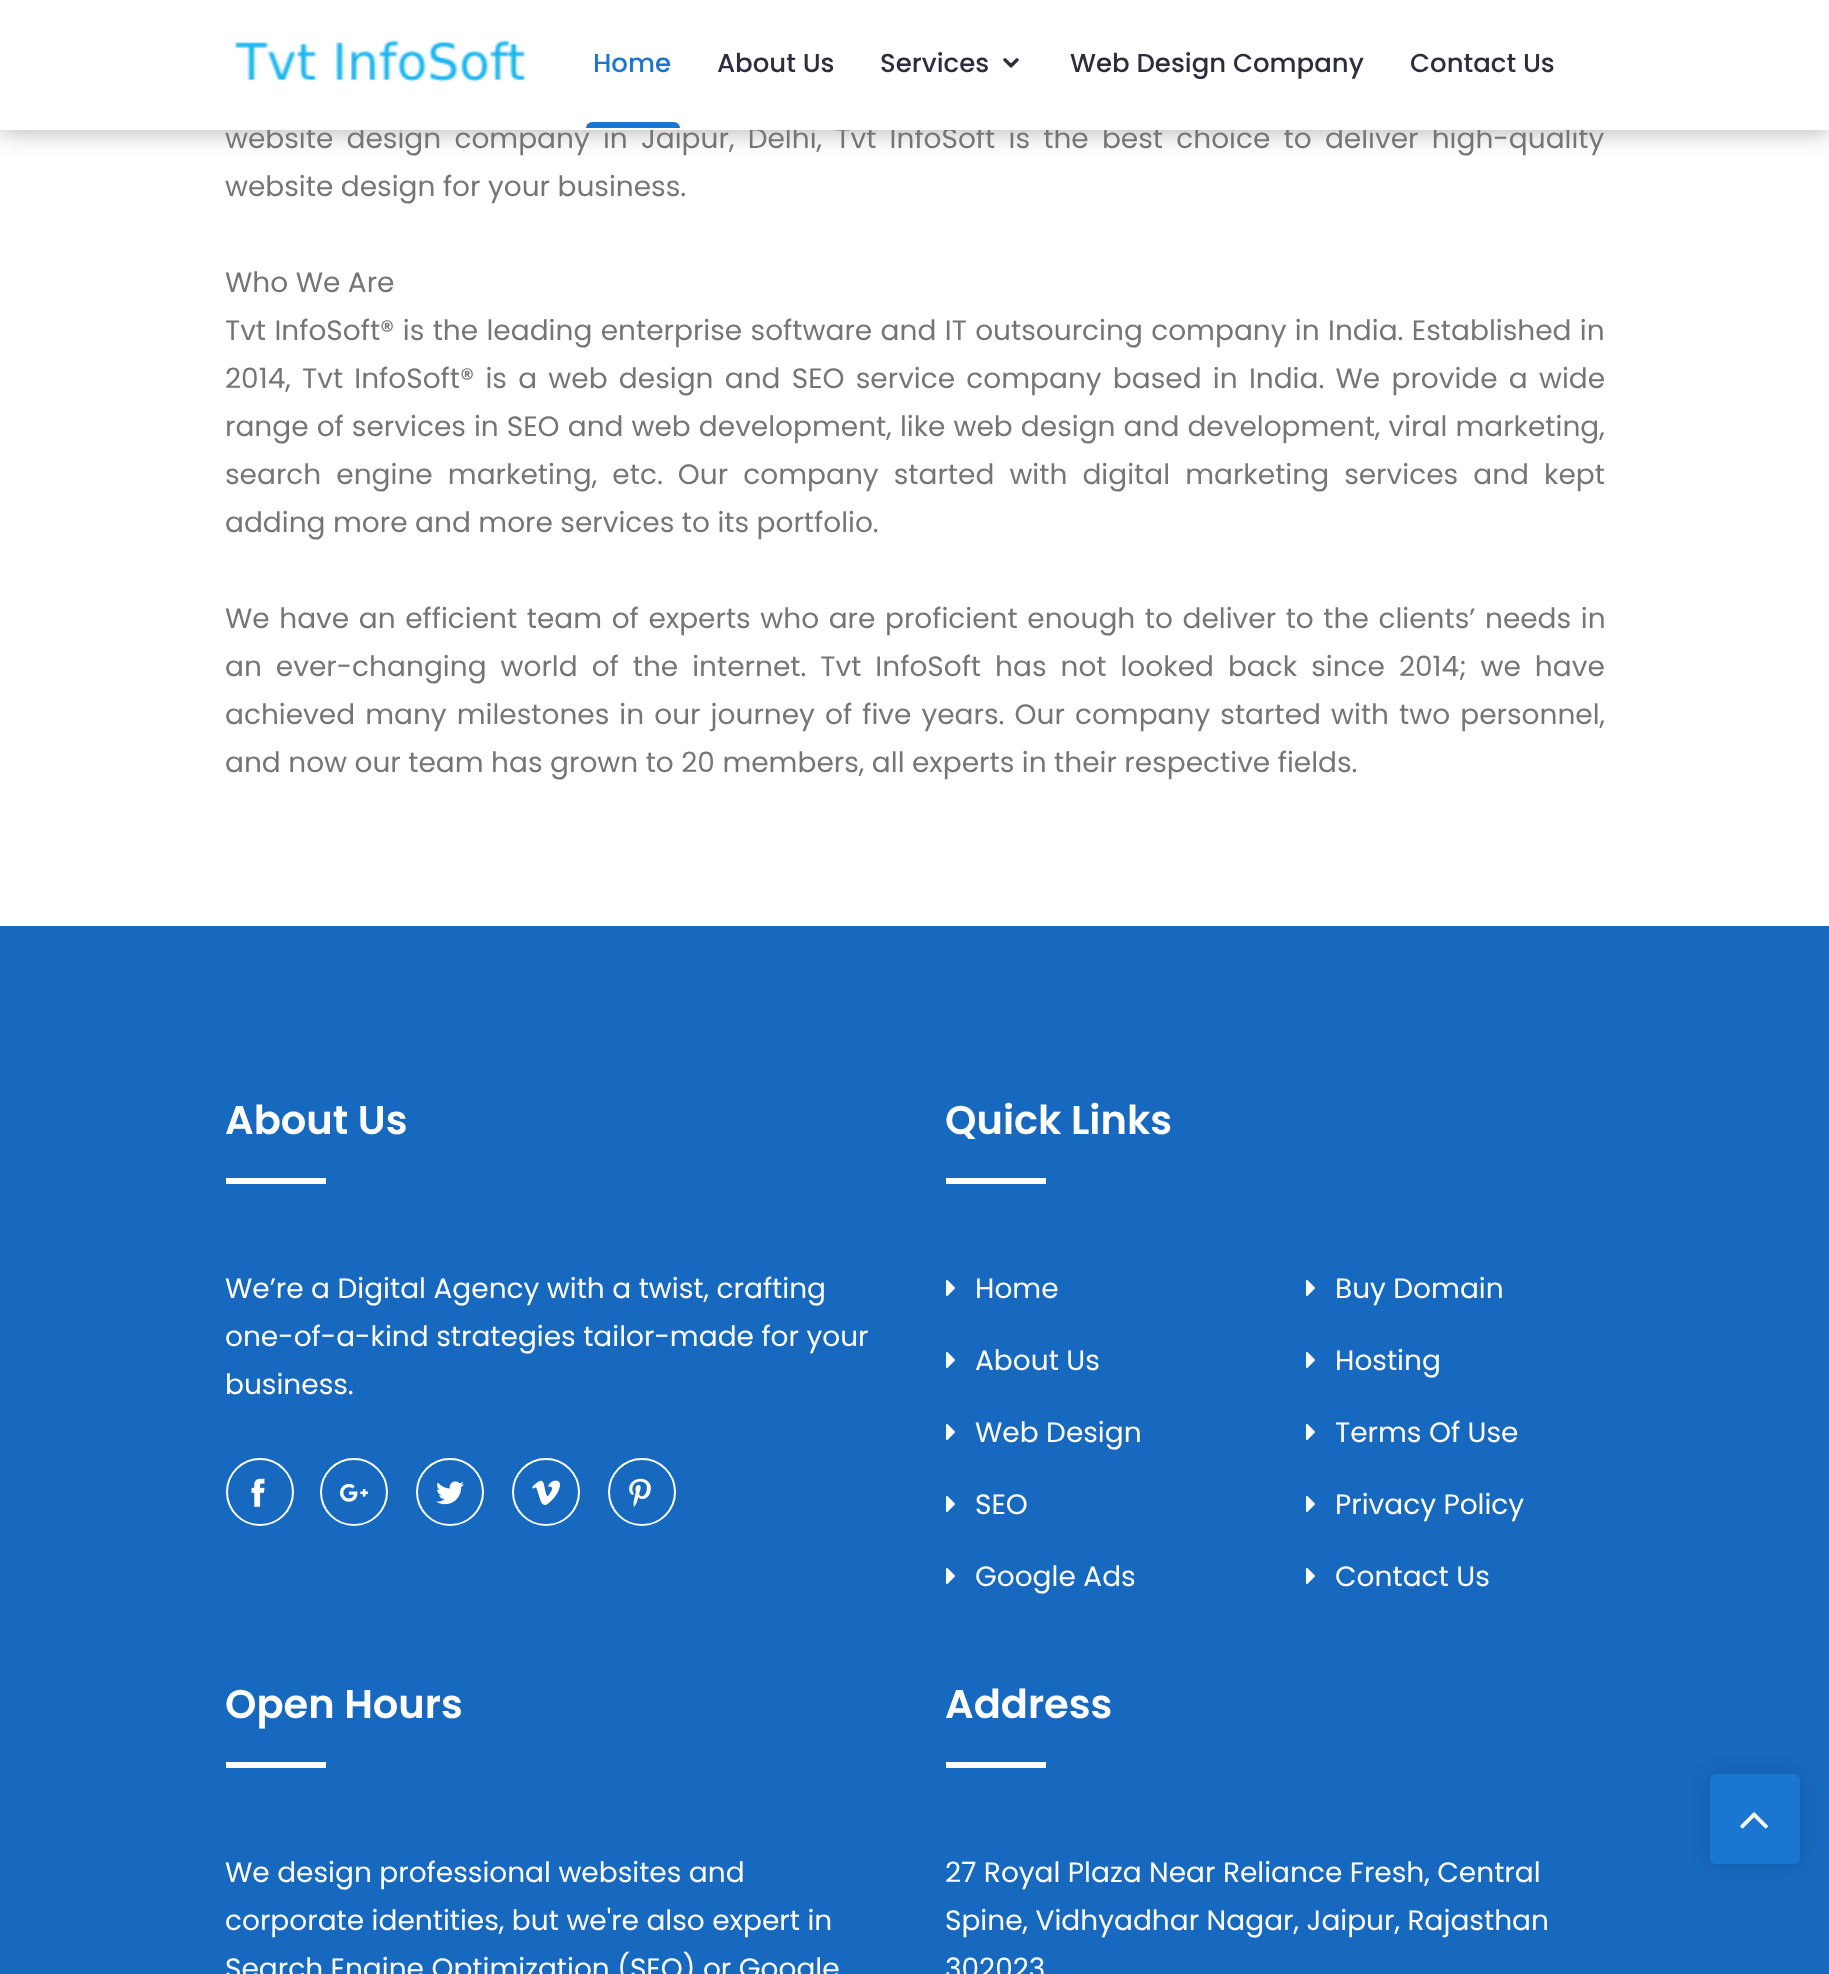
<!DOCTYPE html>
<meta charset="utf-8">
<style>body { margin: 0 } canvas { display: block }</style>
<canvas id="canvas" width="1829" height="1974"></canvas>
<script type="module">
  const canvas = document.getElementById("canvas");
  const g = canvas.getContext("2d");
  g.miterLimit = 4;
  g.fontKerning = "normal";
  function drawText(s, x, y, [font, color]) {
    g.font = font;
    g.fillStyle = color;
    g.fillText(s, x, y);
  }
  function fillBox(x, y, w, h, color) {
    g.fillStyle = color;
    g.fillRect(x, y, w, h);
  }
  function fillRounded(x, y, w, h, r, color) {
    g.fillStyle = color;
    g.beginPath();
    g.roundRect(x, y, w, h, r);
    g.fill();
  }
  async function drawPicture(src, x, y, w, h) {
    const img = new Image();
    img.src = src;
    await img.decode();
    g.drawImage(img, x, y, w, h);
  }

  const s1 = ["28px Poppins", "#757575"];
  const s2 = ["500 26px Poppins", "#1A76D1"];
  const s3 = ["500 26px Poppins", "#2C2D3F"];
  const s4 = ["600 40px Poppins", "#FFFFFF"];
  const s5 = ["28px Poppins", "#FFFFFF"];

  fillBox(0, 0, 1829, 1974, "#FFFFFF");
  g.fillStyle = "rgba(0, 0, 0, 0.33)";
  g.filter = "blur(13px)";
  g.beginPath();
  g.rect(0, 0, 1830, 130);
  g.fill();
  g.filter = "none";
  g.wordSpacing = "5.75px";
  drawText("website design company in Jaipur, Delhi, Tvt InfoSoft is the best choice to deliver high-quality", 225, 148, s1);
  fillBox(0, 0, 1829, 130, "#FFFFFF");
  await drawPicture("pic1.png", 234, 40, 292, 42);
  g.wordSpacing = "0px";
  drawText("Home", 593, 72, s2);
  g.beginPath();
  g.roundRect(586, 122, 94, 6, [6, 6, 0, 0]);
  g.fill();
  drawText("About Us", 717, 72, s3);
  drawText("Services", 880, 72, s3);
  await drawPicture("pic2.png", 1003, 58, 16, 10);
  drawText("Web Design Company", 1070, 72, s3);
  drawText("Contact Us", 1410, 72, s3);
  drawText("website design for your business.", 225, 196, s1);
  drawText("Who We Are", 225, 292, s1);
  g.wordSpacing = "0.9px";
  drawText("Tvt InfoSoft® is the leading enterprise software and IT outsourcing company in India. Established in", 225, 340, s1);
  g.wordSpacing = "3.75px";
  drawText("2014, Tvt InfoSoft® is a web design and SEO service company based in India. We provide a wide", 225, 388, s1);
  g.wordSpacing = "0.6px";
  drawText("range of services in SEO and web development, like web design and development, viral marketing,", 225, 436, s1);
  g.wordSpacing = "7.6px";
  drawText("search engine marketing, etc. Our company started with digital marketing services and kept", 225, 484, s1);
  g.wordSpacing = "0px";
  drawText("adding more and more services to its portfolio.", 225, 532, s1);
  g.wordSpacing = "2.1px";
  drawText("We have an efficient team of experts who are proficient enough to deliver to the clients’ needs in", 225, 628, s1);
  g.wordSpacing = "6.5px";
  drawText("an ever-changing world of the internet. Tvt InfoSoft has not looked back since 2014; we have", 225, 676, s1);
  g.wordSpacing = "2.6px";
  drawText("achieved many milestones in our journey of five years. Our company started with two personnel,", 225, 724, s1);
  g.wordSpacing = "0px";
  drawText("and now our team has grown to 20 members, all experts in their respective fields.", 225, 772, s1);
  fillBox(0, 926, 1829, 1048, "#1769C0");
  drawText("About Us", 225, 1134, s4);
  fillBox(226, 1178, 100, 6, "#FFFFFF");
  drawText("We’re a Digital Agency with a twist, crafting", 225, 1298, s5);
  drawText("one-of-a-kind strategies tailor-made for your", 225, 1346, s5);
  drawText("business.", 225, 1394, s5);
  g.beginPath();
  g.arc(260, 1492, 33, 0, Math.PI * 2);
  g.strokeStyle = "#FFFFFF";
  g.lineWidth = 2;
  g.stroke();
  await drawPicture("pic3.png", 251, 1478, 14, 29);
  g.beginPath();
  g.arc(354, 1492, 33, 0, Math.PI * 2);
  g.stroke();
  await drawPicture("pic4.png", 340, 1483, 28, 19);
  g.beginPath();
  g.arc(450, 1492, 33, 0, Math.PI * 2);
  g.stroke();
  await drawPicture("pic5.png", 436, 1481, 28, 24);
  g.beginPath();
  g.arc(546, 1492, 33, 0, Math.PI * 2);
  g.stroke();
  await drawPicture("pic6.png", 532, 1480, 28, 25);
  g.beginPath();
  g.arc(642, 1492, 33, 0, Math.PI * 2);
  g.stroke();
  await drawPicture("pic7.png", 629, 1478, 22, 29);
  drawText("Quick Links", 945, 1134, s4);
  fillBox(946, 1178, 100, 6, "#FFFFFF");
  await drawPicture("pic8.png", 946, 1280, 9, 16);
  drawText("Home", 975, 1298, s5);
  await drawPicture("pic8.png", 946, 1352, 9, 16);
  drawText("About Us", 975, 1370, s5);
  await drawPicture("pic8.png", 946, 1424, 9, 16);
  drawText("Web Design", 975, 1442, s5);
  await drawPicture("pic8.png", 946, 1496, 9, 16);
  drawText("SEO", 975, 1514, s5);
  await drawPicture("pic8.png", 946, 1568, 9, 16);
  drawText("Google Ads", 975, 1586, s5);
  await drawPicture("pic8.png", 1306, 1280, 9, 16);
  drawText("Buy Domain", 1335, 1298, s5);
  await drawPicture("pic8.png", 1306, 1352, 9, 16);
  drawText("Hosting", 1335, 1370, s5);
  await drawPicture("pic8.png", 1306, 1424, 9, 16);
  drawText("Terms Of Use", 1335, 1442, s5);
  await drawPicture("pic8.png", 1306, 1496, 9, 16);
  drawText("Privacy Policy", 1335, 1514, s5);
  await drawPicture("pic8.png", 1306, 1568, 9, 16);
  drawText("Contact Us", 1335, 1586, s5);
  drawText("Open Hours", 225, 1718, s4);
  fillBox(226, 1762, 100, 6, "#FFFFFF");
  drawText("We design professional websites and", 225, 1882, s5);
  drawText("corporate identities, but we're also expert in", 225, 1930, s5);
  drawText("Search Engine Optimization (SEO) or Google", 225, 1978, s5);
  drawText("Address", 945, 1718, s4);
  fillBox(946, 1762, 100, 6, "#FFFFFF");
  drawText("27 Royal Plaza Near Reliance Fresh, Central", 945, 1882, s5);
  drawText("Spine, Vidhyadhar Nagar, Jaipur, Rajasthan", 945, 1930, s5);
  drawText("302023", 945, 1978, s5);
  g.fillStyle = "rgba(0, 0, 0, 0.15)";
  g.filter = "blur(10px)";
  g.beginPath();
  g.roundRect(1710, 1774, 90, 90, 6);
  g.fill();
  g.filter = "none";
  fillRounded(1710, 1774, 90, 90, 6, "#1A76D1");
  await drawPicture("pic9.png", 1740, 1812, 28, 17);
</script>
